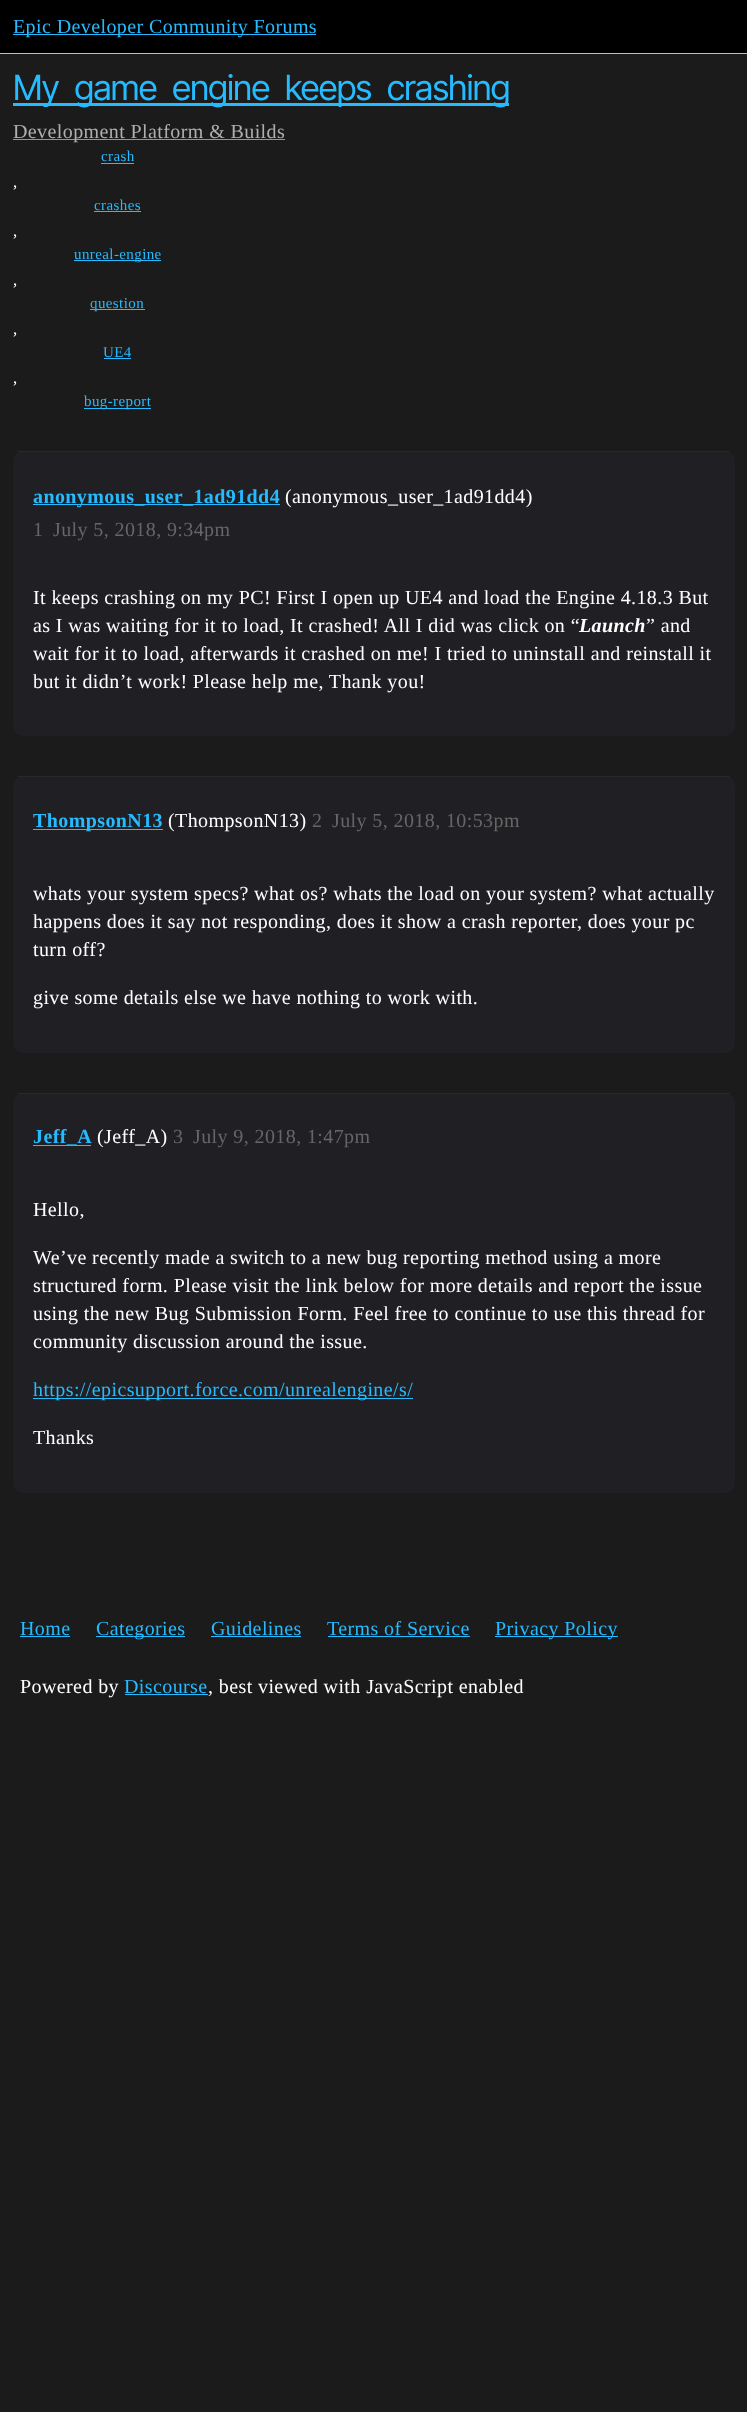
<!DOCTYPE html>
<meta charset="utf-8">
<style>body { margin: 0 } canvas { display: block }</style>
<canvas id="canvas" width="747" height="2412"></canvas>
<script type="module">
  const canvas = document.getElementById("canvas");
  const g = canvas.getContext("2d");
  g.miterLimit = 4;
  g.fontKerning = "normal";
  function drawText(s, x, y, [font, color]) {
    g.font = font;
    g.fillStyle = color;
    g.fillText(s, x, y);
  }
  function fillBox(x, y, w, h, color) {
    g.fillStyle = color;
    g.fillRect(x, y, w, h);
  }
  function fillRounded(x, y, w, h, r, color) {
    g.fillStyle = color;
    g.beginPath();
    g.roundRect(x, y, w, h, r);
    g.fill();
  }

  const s1 = ["20px Liberation Serif", "#26BBFF"];
  const s2 = ["34.75px Inter Tight", "#26BBFF"];
  const s3 = ["20px Liberation Serif", "#AFAFAF"];
  const s4 = ["15px Liberation Serif", "#26BBFF"];
  const s5 = ["17px Liberation Serif", "#FFFFFF"];
  const s6 = ["bold 20px Liberation Serif", "#26BBFF"];
  const s7 = ["20px Liberation Serif", "#FFFFFF"];
  const s8 = ["20px Liberation Serif", "#666666"];
  const s9 = ["italic bold 20px Liberation Serif", "#FFFFFF"];

  fillBox(0, 0, 747, 2412, "#1B1B1B");
  fillBox(0, 0, 747, 53, "#000000");
  fillBox(0, 53, 747, 1, "#BDBDBD");
  fillBox(13, 34, 303, 1, "#26BBFF");
  g.letterSpacing = "0.4px";
  drawText("Epic Developer Community Forums", 13, 33, s1);
  fillBox(13, 103, 496, 3, "#26BBFF");
  g.letterSpacing = "-0.6px";
  g.wordSpacing = "8px";
  drawText("My game engine keeps crashing", 13, 100, s2);
  fillBox(13, 139, 272, 1, "#26BBFF");
  g.letterSpacing = "0.4px";
  g.wordSpacing = "0px";
  drawText("Development Platform & Builds", 13, 138, s3);
  drawText("crash", 101, 161, s4);
  fillBox(101, 163, 33, 1, "#26BBFF");
  drawText(",", 13, 187, s5);
  drawText("crashes", 94, 210, s4);
  fillBox(94, 211, 47, 1, "#26BBFF");
  drawText(",", 13, 236, s5);
  fillBox(74, 260, 87, 1, "#26BBFF");
  drawText("unreal-engine", 74, 259, s4);
  drawText(",", 13, 285, s5);
  fillBox(90, 309, 55, 1, "#26BBFF");
  drawText("question", 90, 308, s4);
  drawText(",", 13, 334, s5);
  drawText("UE4", 103, 357, s4);
  fillBox(104, 358, 27, 1, "#26BBFF");
  drawText(",", 13, 383, s5);
  fillBox(84, 408, 67, 1, "#26BBFF");
  drawText("bug-report", 84, 406, s4);
  fillRounded(13, 451, 722, 285, 10, "#202024");
  fillBox(18, 451, 712, 1, "#28282C");
  fillBox(33, 504, 247, 1, "#26BBFF");
  drawText("anonymous_user_1ad91dd4", 33, 503, s6);
  drawText("(anonymous_user_1ad91dd4)", 285, 503, s7);
  drawText("1", 33, 536, s8);
  drawText("July 5, 2018, 9:34pm", 53, 536, s8);
  drawText("It keeps crashing on my PC! First I open up UE4 and load the Engine 4.18.3 But", 33, 604, s7);
  drawText("as I was waiting for it to load, It crashed! All I did was click on “", 33, 632, s7);
  drawText("Launch", 579, 632, s9);
  drawText("” and", 646, 632, s7);
  drawText("wait for it to load, afterwards it crashed on me! I tried to uninstall and reinstall it", 33, 660, s7);
  drawText("but it didn’t work! Please help me, Thank you!", 33, 688, s7);
  fillRounded(13, 776, 722, 277, 10, "#202024");
  fillBox(18, 776, 712, 1, "#28282C");
  fillBox(33, 829, 130, 1, "#26BBFF");
  drawText("ThompsonN13", 33, 827, s6);
  drawText("(ThompsonN13)", 168, 827, s7);
  drawText("2", 312, 827, s8);
  drawText("July 5, 2018, 10:53pm", 332, 827, s8);
  drawText("whats your system specs? what os? whats the load on your system? what actually", 33, 900, s7);
  drawText("happens does it say not responding, does it show a crash reporter, does your pc", 33, 928, s7);
  drawText("turn off?", 33, 956, s7);
  drawText("give some details else we have nothing to work with.", 33, 1004, s7);
  fillRounded(13, 1093, 722, 400, 10, "#202024");
  fillBox(18, 1093, 712, 1, "#28282C");
  fillBox(33, 1145, 58, 1, "#26BBFF");
  drawText("Jeff_A", 33, 1143, s6);
  drawText("(Jeff_A)", 97, 1143, s7);
  drawText("3", 173, 1143, s8);
  drawText("July 9, 2018, 1:47pm", 193, 1143, s8);
  drawText("Hello,", 33, 1216, s7);
  drawText("We’ve recently made a switch to a new bug reporting method using a more", 33, 1264, s7);
  drawText("structured form. Please visit the link below for more details and report the issue", 33, 1292, s7);
  drawText("using the new Bug Submission Form. Feel free to continue to use this thread for", 33, 1320, s7);
  drawText("community discussion around the issue.", 33, 1348, s7);
  fillBox(33, 1398, 380, 1, "#26BBFF");
  drawText("https://epicsupport.force.com/unrealengine/s/", 33, 1396, s1);
  g.save();
  g.beginPath();
  g.rect(33, 1176, 682, 297);
  g.clip();
  drawText("Thanks", 33, 1444, s7);
  g.restore();
  drawText("Home", 20, 1635, s1);
  fillBox(20, 1636, 50, 1, "#26BBFF");
  fillBox(96, 1636, 89, 1, "#26BBFF");
  drawText("Categories", 96, 1635, s1);
  drawText("Guidelines", 211, 1635, s1);
  fillBox(211, 1636, 90, 1, "#26BBFF");
  drawText("Terms of Service", 327, 1635, s1);
  fillBox(328, 1636, 142, 1, "#26BBFF");
  fillBox(495, 1636, 123, 1, "#26BBFF");
  drawText("Privacy Policy", 495, 1635, s1);
  drawText("Powered by", 20, 1693, s7);
  drawText("Discourse", 124, 1693, s1);
  fillBox(125, 1694, 83, 1, "#26BBFF");
  drawText(", best viewed with JavaScript enabled", 208, 1693, s7);
</script>
